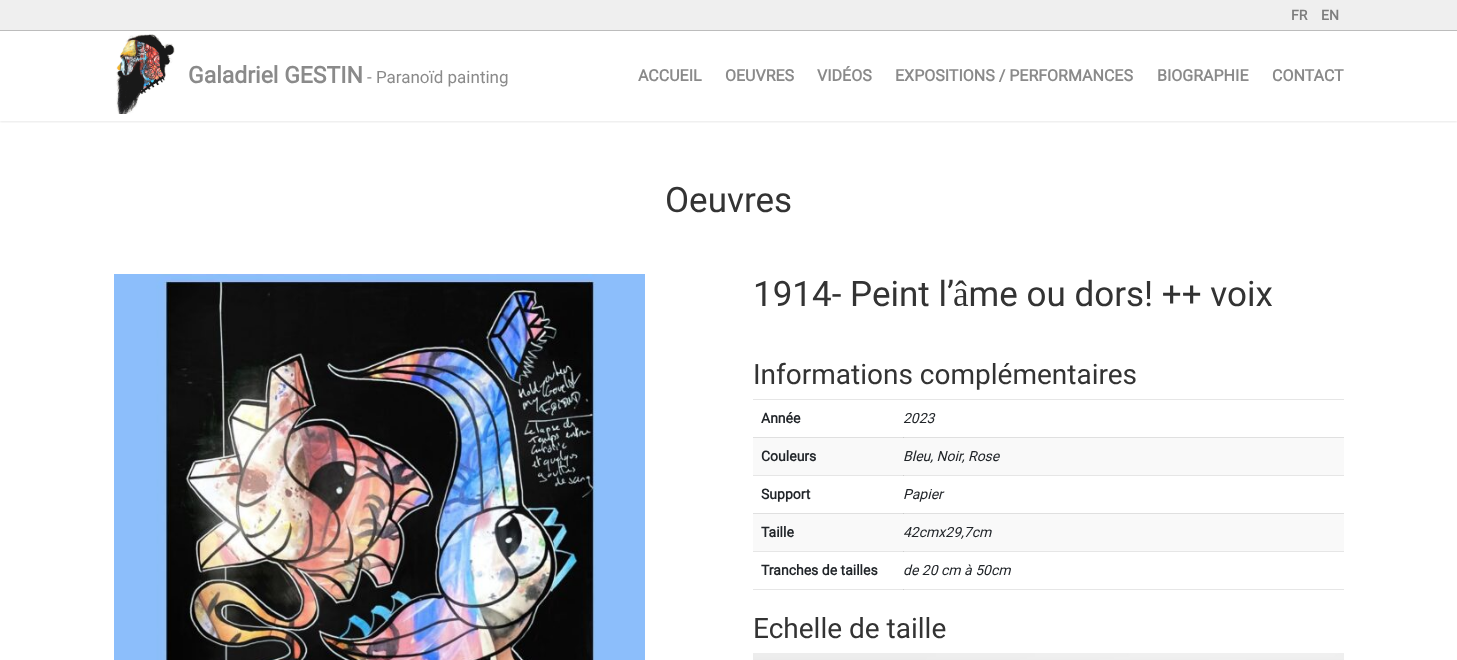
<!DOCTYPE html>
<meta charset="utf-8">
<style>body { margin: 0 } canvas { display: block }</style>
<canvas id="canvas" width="1457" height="660"></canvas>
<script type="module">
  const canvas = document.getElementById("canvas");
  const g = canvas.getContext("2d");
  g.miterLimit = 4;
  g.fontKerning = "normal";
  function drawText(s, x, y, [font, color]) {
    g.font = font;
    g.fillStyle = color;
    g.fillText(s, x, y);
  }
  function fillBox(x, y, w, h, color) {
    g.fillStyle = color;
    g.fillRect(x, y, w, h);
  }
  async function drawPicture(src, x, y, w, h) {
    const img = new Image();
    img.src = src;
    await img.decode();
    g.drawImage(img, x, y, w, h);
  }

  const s1 = ["bold 14px Roboto", "#7D7D7D"];
  const s2 = ["bold 23px Roboto", "#8A8A8A"];
  const s3 = ["17px Roboto", "#8A8A8A"];
  const s4 = ["bold 16px Roboto", "#8A8A8A"];
  const s5 = ["35px Roboto", "#333333"];
  const s6 = ["28px Roboto", "#333333"];
  const s7 = ["bold 14px Roboto", "#212529"];
  const s8 = ["italic 14px Roboto", "#212529"];

  fillBox(0, 0, 1457, 660, "#FFFFFF");
  fillBox(753, 475, 591, 1, "#E6E6E6");
  fillBox(753, 551, 591, 1, "#E6E6E6");
  fillBox(753, 589, 591, 1, "#E6E6E6");
  g.save();
  g.beginPath();
  g.rect(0, 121, 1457, 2);
  g.clip();
  g.fillStyle = "rgba(26, 26, 26, 0.1)";
  g.filter = "blur(1px)";
  g.beginPath();
  g.rect(0, 31, 1457, 91);
  g.fill();
  g.filter = "none";
  g.restore();
  fillBox(0, 0, 1457, 30, "#EFEFEF");
  drawText("FR", 1291, 20, s1);
  drawText("EN", 1321, 20, s1);
  fillBox(0, 30, 1457, 1, "#BCBCBC");
  await drawPicture("pic1.png", 116, 34, 59, 80);
  drawText("Galadriel GESTIN", 188, 83, s2);
  drawText("- Paranoïd painting", 367, 83, s3);
  drawText("ACCUEIL", 638, 81, s4);
  drawText("OEUVRES", 725, 81, s4);
  drawText("VIDÉOS", 817, 81, s4);
  drawText("EXPOSITIONS / PERFORMANCES", 895, 81, s4);
  drawText("BIOGRAPHIE", 1157, 81, s4);
  drawText("CONTACT", 1272, 81, s4);
  drawText("Oeuvres", 665, 212, s5);
  await drawPicture("pic2.png", 114, 274, 531, 386);
  drawText("1914- Peint l’âme ou dors! ++ voix", 753, 306, s5);
  drawText("Informations complémentaires", 753, 384, s6);
  fillBox(753, 399, 591, 1, "#E6E6E6");
  drawText("Année", 761, 423, s7);
  fillBox(753, 437, 591, 1, "#E0E0E0");
  fillBox(903, 437, 1, 1, "#CACACA");
  drawText("2023", 903, 423, s8);
  fillBox(753, 438, 591, 37, "#F9F9F9");
  drawText("Couleurs", 761, 461, s7);
  fillBox(903, 475, 1, 1, "#CFCFCF");
  drawText("Bleu, Noir, Rose", 903, 461, s8);
  drawText("Support", 761, 499, s7);
  fillBox(753, 513, 591, 1, "#E0E0E0");
  fillBox(903, 513, 1, 1, "#CACACA");
  drawText("Papier", 903, 499, s8);
  fillBox(753, 514, 591, 37, "#F9F9F9");
  drawText("Taille", 761, 537, s7);
  fillBox(903, 551, 1, 1, "#CFCFCF");
  drawText("42cmx29,7cm", 903, 537, s8);
  drawText("Tranches de tailles", 761, 575, s7);
  fillBox(903, 589, 1, 1, "#CFCFCF");
  drawText("de 20 cm à 50cm", 903, 575, s8);
  drawText("Echelle de taille", 753, 638, s6);
  await drawPicture("pic3.png", 753, 653, 591, 7);
</script>
